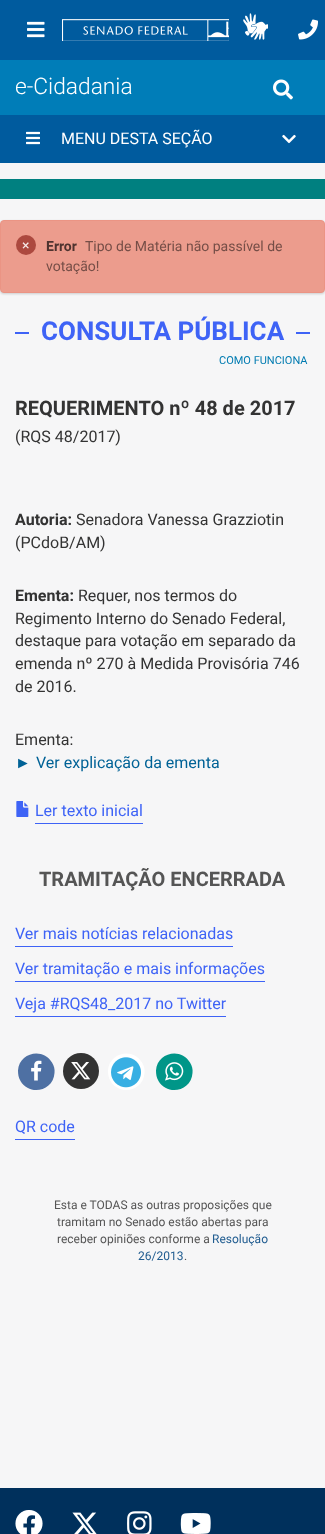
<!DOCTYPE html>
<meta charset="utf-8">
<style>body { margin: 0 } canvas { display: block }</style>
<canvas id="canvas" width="325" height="1534"></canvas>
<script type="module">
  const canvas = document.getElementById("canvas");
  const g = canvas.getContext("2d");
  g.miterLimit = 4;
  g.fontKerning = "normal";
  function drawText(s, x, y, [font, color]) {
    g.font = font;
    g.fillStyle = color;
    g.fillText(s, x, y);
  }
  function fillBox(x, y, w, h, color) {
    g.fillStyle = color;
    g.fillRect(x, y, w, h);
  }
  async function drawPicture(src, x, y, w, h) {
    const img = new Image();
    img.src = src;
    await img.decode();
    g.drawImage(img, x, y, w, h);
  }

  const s1 = ["300 22.75px Roboto", "#FFFFFF"];
  const s2 = ["16px Roboto", "#FFFFFF"];
  const s3 = ["14px Roboto", "#F7EDEC"];
  const s4 = ["bold 14px Roboto", "#4E332F"];
  const s5 = ["14px Roboto", "#764E47"];
  const s6 = ["bold 26px Roboto", "#3E63F6"];
  const s7 = ["11px Roboto", "#007BB1"];
  const s8 = ["bold 20px Roboto", "#333333"];
  const s9 = ["16px Roboto", "#333333"];
  const s10 = ["bold 16px Roboto", "#333333"];
  const s11 = ["16px Liberation Sans", "#006296"];
  const s12 = ["16px Roboto", "#006296"];
  const s13 = ["16px Roboto", "#3E63F6"];
  const s14 = ["bold 20px Roboto", "#555555"];
  const s15 = ["12px Roboto", "#555555"];
  const s16 = ["12px Roboto", "#205C90"];

  fillBox(0, 0, 325, 1534, "#F6F6F7");
  fillBox(0, 0, 325, 60, "#005B9E");
  await drawPicture("pic1.png", 27, 21, 18, 17);
  await drawPicture("pic2.png", 62, 19, 167, 22);
  await drawPicture("pic3.png", 243, 13, 25, 27);
  await drawPicture("pic4.png", 298, 19, 20, 21);
  fillBox(0, 60, 325, 55, "#007DB8");
  drawText("e-Cidadania", 15, 94, s1);
  await drawPicture("pic5.png", 273, 79, 20, 21);
  fillBox(0, 115, 325, 48, "#005B9E");
  await drawPicture("pic6.png", 26, 131, 14, 14);
  drawText("MENU DESTA SEÇÃO", 61, 144, s2);
  await drawPicture("pic7.png", 282, 134, 14, 10);
  fillBox(0, 179, 325, 20, "#008080");
  g.fillStyle = "rgba(0, 0, 0, 0.17)";
  g.filter = "blur(1px)";
  g.beginPath();
  g.roundRect(0, 221, 325, 73, 4);
  g.fill();
  g.filter = "none";
  g.fillStyle = "#EC9C8D";
  g.beginPath();
  g.roundRect(0.5, 220.5, 324, 72, 3.5);
  g.fill();
  g.strokeStyle = "#EB9484";
  g.stroke();
  g.fillStyle = "#AC493F";
  g.beginPath();
  g.arc(26, 245, 10, 0, Math.PI * 2);
  g.fill();
  drawText("×", 22, 250, s3);
  drawText("Error", 46, 251, s4);
  drawText("Tipo de Matéria não passível de", 85, 251, s5);
  drawText("votação!", 46, 271, s5);
  fillBox(15, 332, 295, 2, "#3E63F6");
  fillBox(29, 332, 267, 2, "#F6F6F7");
  drawText("CONSULTA PÚBLICA", 41, 340, s6);
  drawText("COMO FUNCIONA", 219, 364, s7);
  drawText("REQUERIMENTO nº 48 de 2017", 15, 415, s8);
  drawText("(RQS 48/2017)", 15, 442, s9);
  drawText("Autoria:", 15, 525, s10);
  drawText("Senadora Vanessa Grazziotin", 76, 525, s9);
  drawText("(PCdoB/AM)", 15, 548, s9);
  drawText("Ementa:", 15, 601, s10);
  drawText("Requer, nos termos do", 78, 601, s9);
  drawText("Regimento Interno do Senado Federal,", 15, 624, s9);
  drawText("destaque para votação em separado da", 15, 646, s9);
  drawText("emenda nº 270 à Medida Provisória 746", 15, 669, s9);
  drawText("de 2016.", 15, 692, s9);
  drawText("Ementa:", 15, 745, s9);
  drawText("►", 15, 768, s11);
  drawText("Ver explicação da ementa", 36, 768, s12);
  await drawPicture("pic8.png", 16, 801, 13, 16);
  fillBox(35, 823, 108, 1, "#3E63F6");
  drawText("Ler texto inicial", 35, 816, s13);
  drawText("TRAMITAÇÃO ENCERRADA", 39, 886, s14);
  fillBox(15, 946, 218, 1, "#3E63F6");
  drawText("Ver mais notícias relacionadas", 15, 939, s13);
  fillBox(15, 981, 250, 1, "#3E63F6");
  drawText("Ver tramitação e mais informações", 15, 974, s13);
  fillBox(15, 1016, 211, 1, "#3E63F6");
  drawText("Veja #RQS48_2017 no Twitter", 15, 1009, s13);
  g.fillStyle = "#4E70A3";
  g.beginPath();
  g.moveTo(52, 1062.5);
  g.bezierCurveTo(54, 1065.5, 55, 1069.5, 54.5, 1073);
  g.bezierCurveTo(53.5, 1091, 29.5, 1096.5, 20.5, 1081);
  g.bezierCurveTo(18.5, 1078, 18, 1074, 18, 1070.5);
  g.bezierCurveTo(19, 1052.5, 43, 1047, 52, 1062.5);
  g.closePath();
  g.fill();
  await drawPicture("pic9.png", 31, 1060, 11, 21);
  g.fillStyle = "#333333";
  g.beginPath();
  g.arc(81, 1071, 18, 0, Math.PI * 2);
  g.fill();
  await drawPicture("pic10.png", 71, 1062, 20, 18);
  g.fillStyle = "#FFFFFF";
  g.beginPath();
  g.moveTo(142, 1062.5);
  g.bezierCurveTo(144, 1065.5, 145, 1069.5, 144.5, 1073);
  g.bezierCurveTo(143.5, 1091, 119.5, 1096.5, 110.5, 1081);
  g.bezierCurveTo(108.5, 1078, 108, 1074, 108, 1070.5);
  g.bezierCurveTo(109, 1052.5, 133, 1047, 142, 1062.5);
  g.closePath();
  g.fill();
  await drawPicture("pic11.png", 111, 1057, 30, 31);
  g.fillStyle = "#009688";
  g.beginPath();
  g.moveTo(190, 1062.5);
  g.bezierCurveTo(192, 1065.5, 193, 1069.5, 192.5, 1073);
  g.bezierCurveTo(191.5, 1091, 167.5, 1096.5, 158.5, 1081);
  g.bezierCurveTo(156.5, 1078, 156, 1074, 156, 1070.5);
  g.bezierCurveTo(157, 1052.5, 181, 1047, 190, 1062.5);
  g.closePath();
  g.fill();
  await drawPicture("pic12.png", 165, 1062, 19, 19);
  fillBox(15, 1139, 60, 1, "#3E63F6");
  drawText("QR code", 15, 1132, s13);
  drawText("Esta e TODAS as outras proposições que", 54, 1209, s15);
  drawText("tramitam no Senado estão abertas para", 57, 1226, s15);
  drawText("receber opiniões conforme a", 57, 1243, s15);
  drawText("Resolução", 212, 1243, s16);
  drawText("26/2013", 138, 1260, s16);
  drawText(".", 184, 1260, s15);
  fillBox(0, 1488, 325, 46, "#00305C");
  await drawPicture("pic13.png", 15, 1510, 28, 24);
  await drawPicture("pic14.png", 72, 1512, 25, 22);
  await drawPicture("pic15.png", 127, 1511, 25, 23);
  await drawPicture("pic16.png", 180, 1513, 31, 21);
</script>
